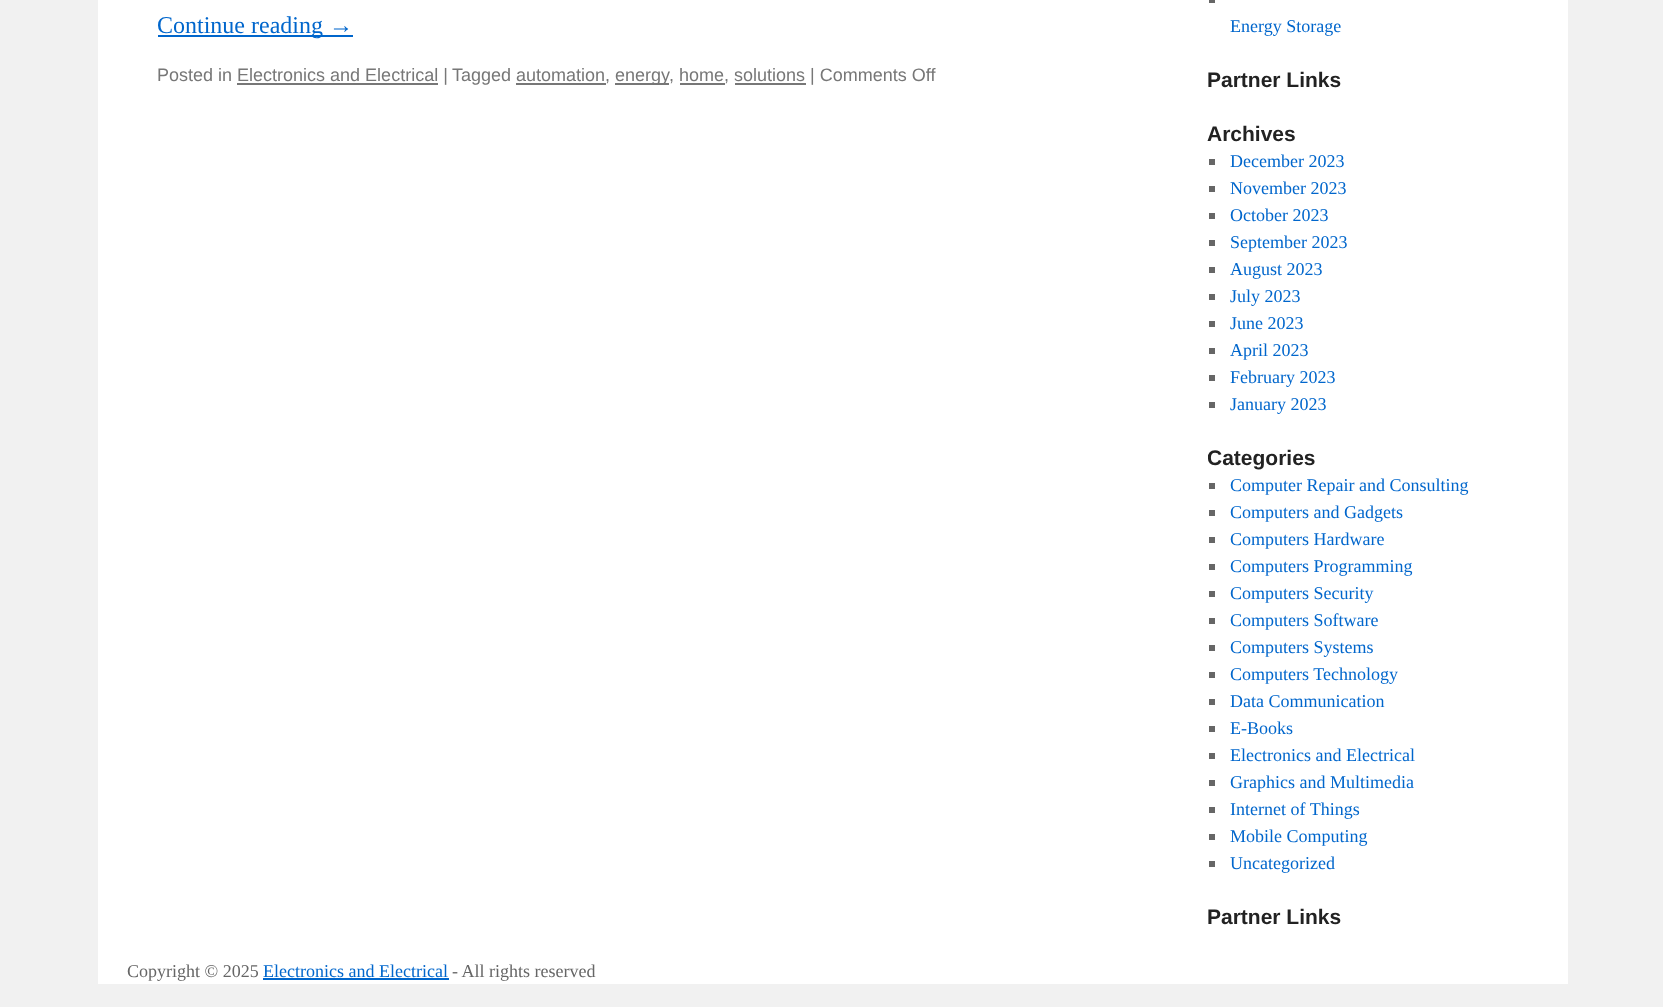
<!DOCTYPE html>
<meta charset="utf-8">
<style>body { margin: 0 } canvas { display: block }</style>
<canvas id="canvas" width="1663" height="1007"></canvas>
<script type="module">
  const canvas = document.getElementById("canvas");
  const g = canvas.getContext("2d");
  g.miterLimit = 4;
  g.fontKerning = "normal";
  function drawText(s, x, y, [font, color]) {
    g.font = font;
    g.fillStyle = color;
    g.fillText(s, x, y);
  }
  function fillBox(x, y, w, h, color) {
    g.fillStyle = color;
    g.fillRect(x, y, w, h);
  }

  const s1 = ["24px Liberation Serif", "#0066CC"];
  const s2 = ["18px Liberation Sans", "#777777"];
  const s3 = ["18px Liberation Serif", "#0066CC"];
  const s4 = ["bold 21px Liberation Sans", "#222222"];
  const s5 = ["18px Liberation Serif", "#666666"];

  fillBox(0, 0, 1663, 1007, "#F1F1F1");
  fillBox(98, 0, 1470, 984, "#FFFFFF");
  fillBox(158, 35, 195, 2, "#0066CC");
  drawText("Continue reading →", 157, 33, s1);
  drawText("Posted in Electronics and Electrical |", 157, 81, s2);
  fillBox(237, 83, 201, 2, "#777777");
  drawText("Tagged automation,", 452, 81, s2);
  fillBox(516, 83, 90, 2, "#777777");
  fillBox(615, 83, 54, 2, "#777777");
  drawText("energy", 615, 81, s2);
  drawText(", home, solutions | Comments Off", 669, 81, s2);
  fillBox(680, 83, 45, 2, "#777777");
  fillBox(735, 83, 71, 2, "#777777");
  fillBox(1209, 0, 6, 3, "#666666");
  drawText("Energy Storage", 1230, 32, s3);
  drawText("Partner Links", 1207, 87, s4);
  drawText("Archives", 1207, 141, s4);
  fillBox(1209, 159, 6, 6, "#666666");
  drawText("December 2023", 1230, 167, s3);
  fillBox(1209, 186, 6, 6, "#666666");
  drawText("November 2023", 1230, 194, s3);
  fillBox(1209, 213, 6, 6, "#666666");
  drawText("October 2023", 1230, 221, s3);
  fillBox(1209, 240, 6, 6, "#666666");
  drawText("September 2023", 1230, 248, s3);
  fillBox(1209, 267, 6, 6, "#666666");
  drawText("August 2023", 1230, 275, s3);
  fillBox(1209, 294, 6, 6, "#666666");
  drawText("July 2023", 1230, 302, s3);
  fillBox(1209, 321, 6, 6, "#666666");
  drawText("June 2023", 1230, 329, s3);
  fillBox(1209, 348, 6, 6, "#666666");
  drawText("April 2023", 1230, 356, s3);
  fillBox(1209, 375, 6, 6, "#666666");
  drawText("February 2023", 1230, 383, s3);
  fillBox(1209, 402, 6, 6, "#666666");
  drawText("January 2023", 1230, 410, s3);
  g.save();
  g.beginPath();
  g.rect(1208, 0, 330, 957);
  g.clip();
  drawText("Categories", 1207, 465, s4);
  g.restore();
  fillBox(1209, 483, 6, 6, "#666666");
  drawText("Computer Repair and Consulting", 1230, 491, s3);
  fillBox(1209, 510, 6, 6, "#666666");
  drawText("Computers and Gadgets", 1230, 518, s3);
  fillBox(1209, 537, 6, 6, "#666666");
  drawText("Computers Hardware", 1230, 545, s3);
  fillBox(1209, 564, 6, 6, "#666666");
  drawText("Computers Programming", 1230, 572, s3);
  fillBox(1209, 591, 6, 6, "#666666");
  drawText("Computers Security", 1230, 599, s3);
  fillBox(1209, 618, 6, 6, "#666666");
  drawText("Computers Software", 1230, 626, s3);
  fillBox(1209, 645, 6, 6, "#666666");
  drawText("Computers Systems", 1230, 653, s3);
  fillBox(1209, 672, 6, 6, "#666666");
  drawText("Computers Technology", 1230, 680, s3);
  fillBox(1209, 699, 6, 6, "#666666");
  drawText("Data Communication", 1230, 707, s3);
  fillBox(1209, 726, 6, 6, "#666666");
  drawText("E-Books", 1230, 734, s3);
  fillBox(1209, 753, 6, 6, "#666666");
  drawText("Electronics and Electrical", 1230, 761, s3);
  fillBox(1209, 780, 6, 6, "#666666");
  drawText("Graphics and Multimedia", 1230, 788, s3);
  fillBox(1209, 807, 6, 6, "#666666");
  drawText("Internet of Things", 1230, 815, s3);
  fillBox(1209, 834, 6, 6, "#666666");
  drawText("Mobile Computing", 1230, 842, s3);
  fillBox(1209, 861, 6, 6, "#666666");
  drawText("Uncategorized", 1230, 869, s3);
  drawText("Partner Links", 1207, 924, s4);
  drawText("Copyright © 2025", 127, 977, s5);
  drawText("Electronics and Electrical", 263, 977, s3);
  fillBox(263, 978, 186, 2, "#0066CC");
  drawText("- All rights reserved", 452, 977, s5);
</script>
